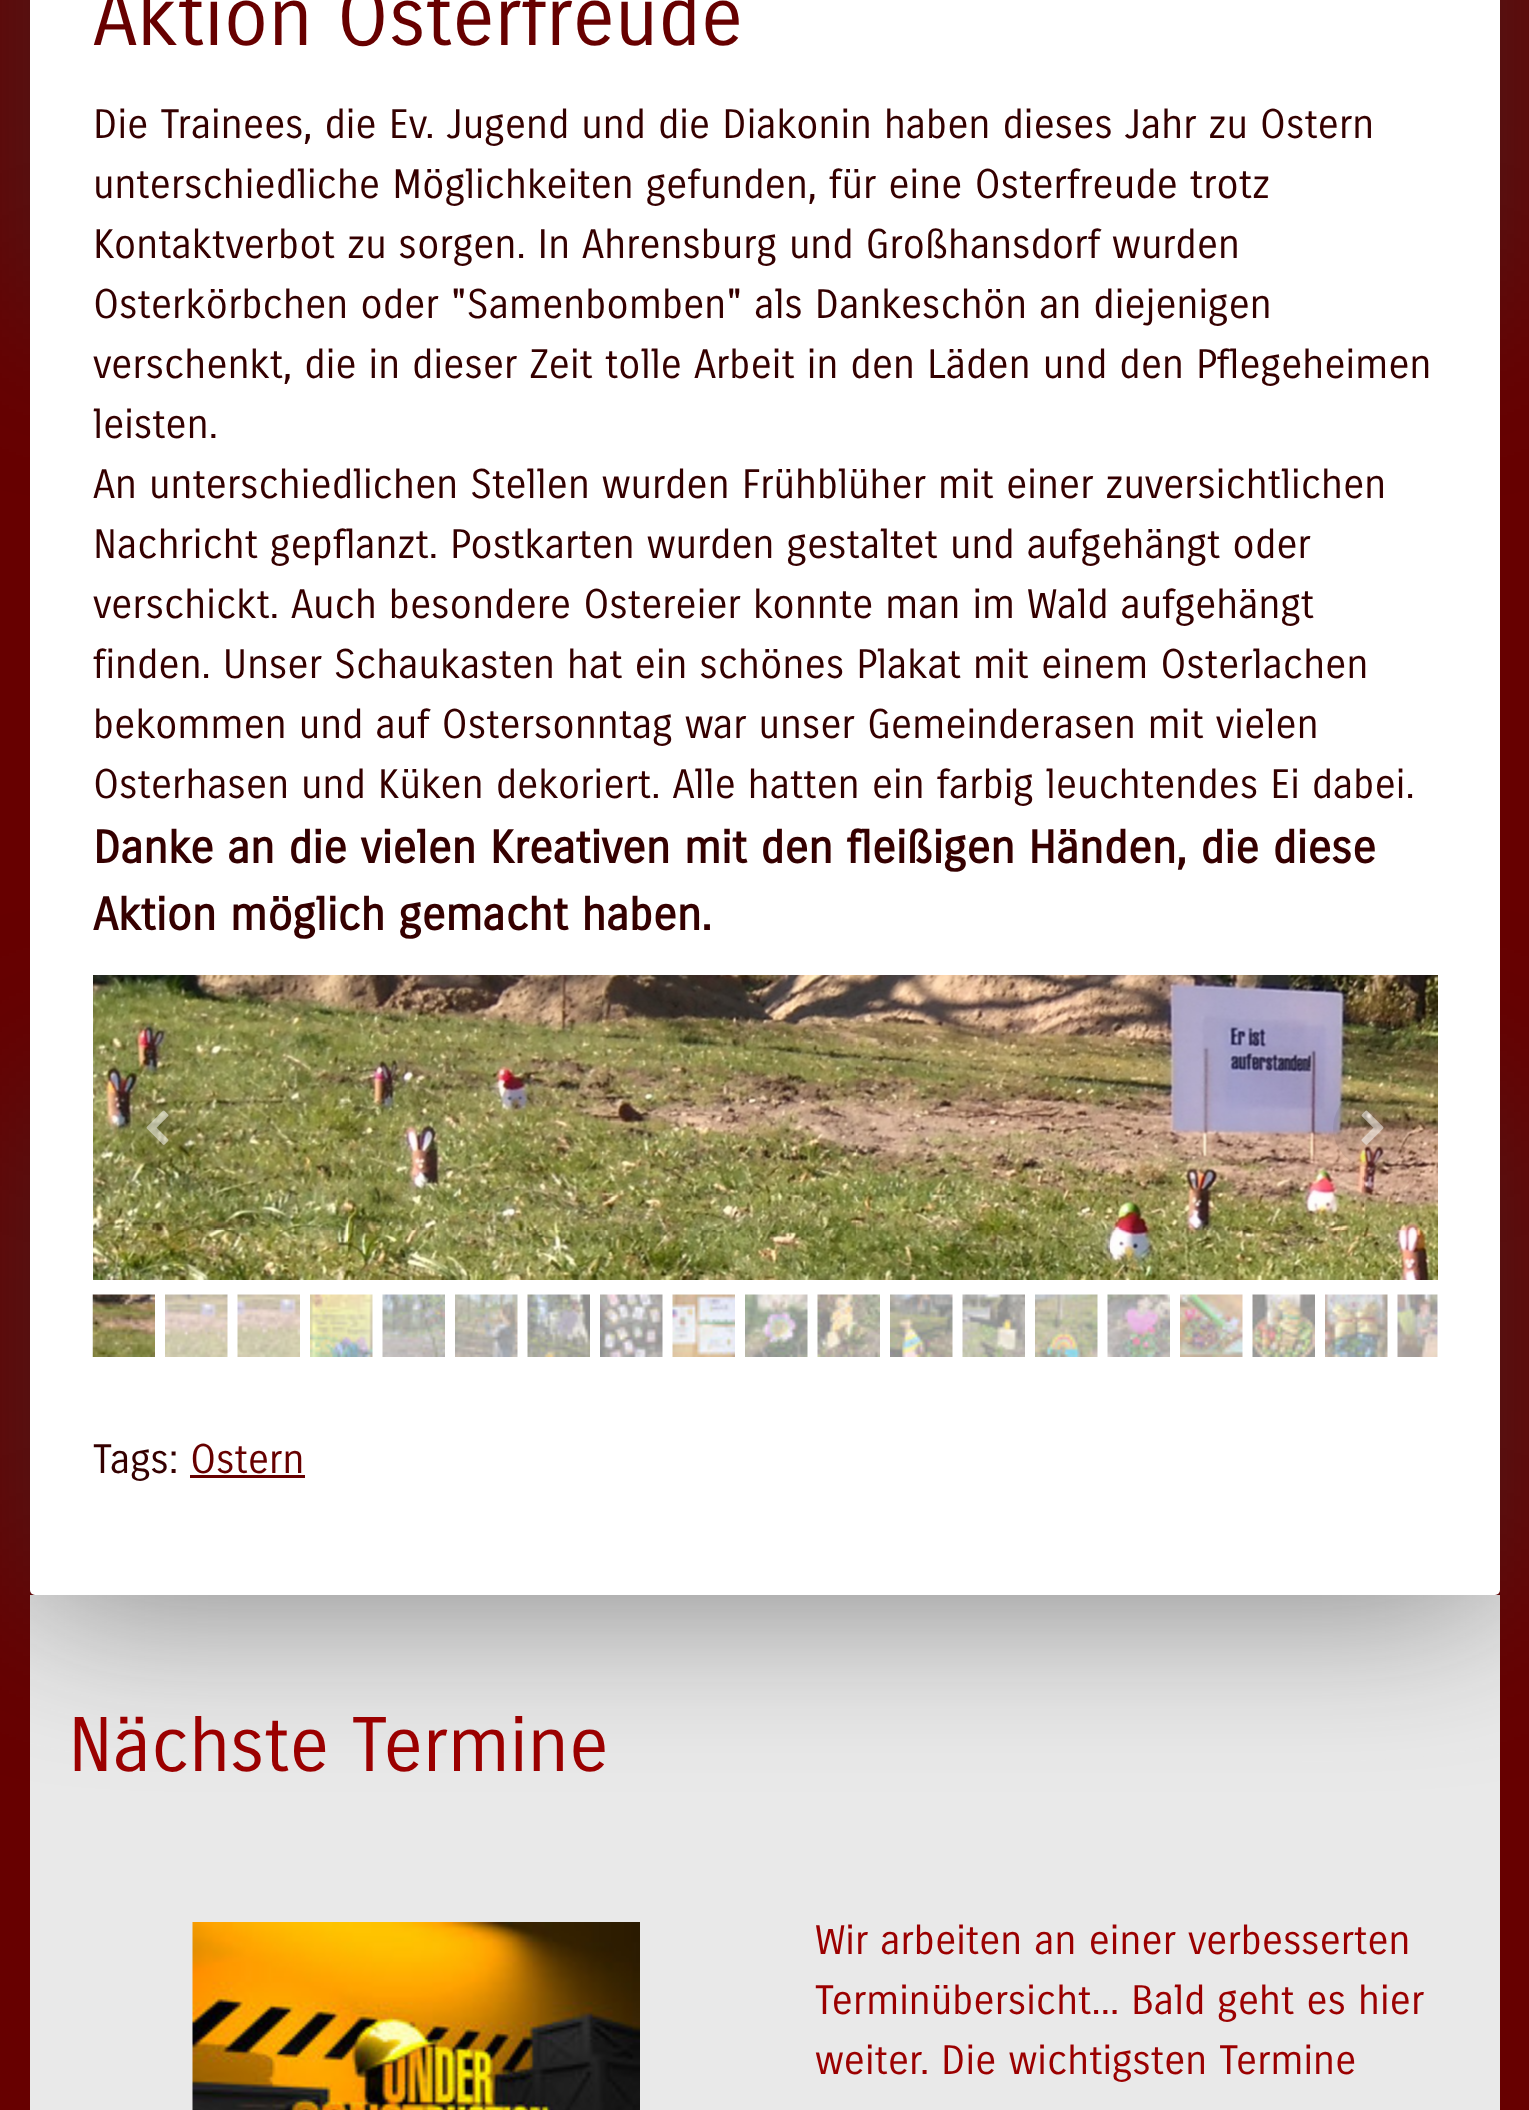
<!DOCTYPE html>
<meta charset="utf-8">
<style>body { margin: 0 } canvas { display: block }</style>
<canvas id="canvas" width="1529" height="2110"></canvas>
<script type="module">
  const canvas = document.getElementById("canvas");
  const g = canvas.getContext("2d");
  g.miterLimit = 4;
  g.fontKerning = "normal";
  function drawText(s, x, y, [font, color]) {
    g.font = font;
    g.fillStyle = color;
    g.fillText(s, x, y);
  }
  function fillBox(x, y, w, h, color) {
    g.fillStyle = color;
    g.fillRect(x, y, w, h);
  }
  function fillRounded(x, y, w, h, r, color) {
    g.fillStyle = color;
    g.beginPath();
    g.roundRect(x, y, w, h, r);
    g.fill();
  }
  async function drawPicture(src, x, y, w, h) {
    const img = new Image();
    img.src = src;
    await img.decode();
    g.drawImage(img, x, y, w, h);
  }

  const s1 = ["80px Carrois Gothic", "#670000"];
  const s2 = ["40px Carrois Gothic", "#350000"];
  const s3 = ["bold 45px Carrois Gothic", "#350000"];
  const s4 = ["40px Carrois Gothic", "#670000"];
  const s5 = ["75px Carrois Gothic", "#9B0000"];
  const s6 = ["40px Carrois Gothic", "#9B0000"];

  fillBox(0, 0, 1529, 2110, "#670000");
  g.fillStyle = "rgba(51, 51, 51, 0.6)";
  g.filter = "blur(85px)";
  g.beginPath();
  g.rect(30, -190, 1470, 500);
  g.fill();
  g.filter = "none";
  fillBox(30, 1595, 1470, 515, "#E9E9E9");
  g.fillStyle = "rgba(51, 51, 51, 0.6)";
  g.filter = "blur(85px)";
  g.beginPath();
  g.rect(30, 1095, 1470, 500);
  g.fill();
  g.filter = "none";
  fillRounded(30, -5, 1470, 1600, 5, "#FFFFFF");
  drawText("Aktion Osterfreude", 93, 45, s1);
  drawText("Die Trainees, die Ev. Jugend und die Diakonin haben dieses Jahr zu Ostern", 93, 138, s2);
  drawText("unterschiedliche Möglichkeiten gefunden, für eine Osterfreude trotz", 93, 198, s2);
  drawText("Kontaktverbot zu sorgen. In Ahrensburg und Großhansdorf wurden", 93, 258, s2);
  drawText("Osterkörbchen oder \"Samenbomben\" als Dankeschön an diejenigen", 93, 318, s2);
  drawText("verschenkt, die in dieser Zeit tolle Arbeit in den Läden und den Pflegeheimen", 93, 378, s2);
  drawText("leisten.", 93, 438, s2);
  drawText("An unterschiedlichen Stellen wurden Frühblüher mit einer zuversichtlichen", 93, 498, s2);
  drawText("Nachricht gepflanzt. Postkarten wurden gestaltet und aufgehängt oder", 93, 558, s2);
  drawText("verschickt. Auch besondere Ostereier konnte man im Wald aufgehängt", 93, 618, s2);
  drawText("finden. Unser Schaukasten hat ein schönes Plakat mit einem Osterlachen", 93, 678, s2);
  drawText("bekommen und auf Ostersonntag war unser Gemeinderasen mit vielen", 93, 738, s2);
  drawText("Osterhasen und Küken dekoriert. Alle hatten ein farbig leuchtendes Ei dabei.", 93, 798, s2);
  drawText("Danke an die vielen Kreativen mit den fleißigen Händen, die diese", 93, 863, s3);
  drawText("Aktion möglich gemacht haben.", 93, 930, s3);
  await drawPicture("pic1.png", 93, 975, 1345, 305);
  g.fillStyle = "rgba(0, 0, 0, 0.07)";
  g.beginPath();
  g.arc(158, 1128, 40, 0, Math.PI * 2);
  g.fill();
  await drawPicture("pic2.png", 146, 1110, 23, 35);
  g.beginPath();
  g.arc(1373, 1128, 40, 0, Math.PI * 2);
  g.fill();
  await drawPicture("pic3.png", 1361, 1110, 23, 35);
  await drawPicture("pic4.png", 92, 1294, 63, 63);
  await drawPicture("pic5.png", 165, 1294, 63, 63);
  await drawPicture("pic6.png", 237, 1294, 63, 63);
  await drawPicture("pic7.png", 310, 1294, 63, 63);
  await drawPicture("pic8.png", 382, 1294, 63, 63);
  await drawPicture("pic9.png", 455, 1294, 63, 63);
  await drawPicture("pic10.png", 527, 1294, 63, 63);
  await drawPicture("pic11.png", 600, 1294, 63, 63);
  await drawPicture("pic12.png", 672, 1294, 63, 63);
  await drawPicture("pic13.png", 745, 1294, 63, 63);
  await drawPicture("pic14.png", 817, 1294, 63, 63);
  await drawPicture("pic15.png", 890, 1294, 63, 63);
  await drawPicture("pic16.png", 962, 1294, 63, 63);
  await drawPicture("pic17.png", 1035, 1294, 63, 63);
  await drawPicture("pic18.png", 1107, 1294, 63, 63);
  await drawPicture("pic19.png", 1180, 1294, 63, 63);
  await drawPicture("pic20.png", 1252, 1294, 63, 63);
  await drawPicture("pic21.png", 1325, 1294, 63, 63);
  await drawPicture("pic22.png", 1397, 1294, 41, 63);
  drawText("Tags:", 93, 1473, s2);
  drawText("Ostern", 190, 1473, s4);
  fillBox(190, 1475, 115, 3, "#670000");
  drawText("Nächste Termine", 68, 1771, s5);
  await drawPicture("pic23.png", 192, 1922, 448, 188);
  drawText("Wir arbeiten an einer verbesserten", 815, 1954, s6);
  drawText("Terminübersicht... Bald geht es hier", 815, 2014, s6);
  drawText("weiter. Die wichtigsten Termine", 815, 2074, s6);
</script>
